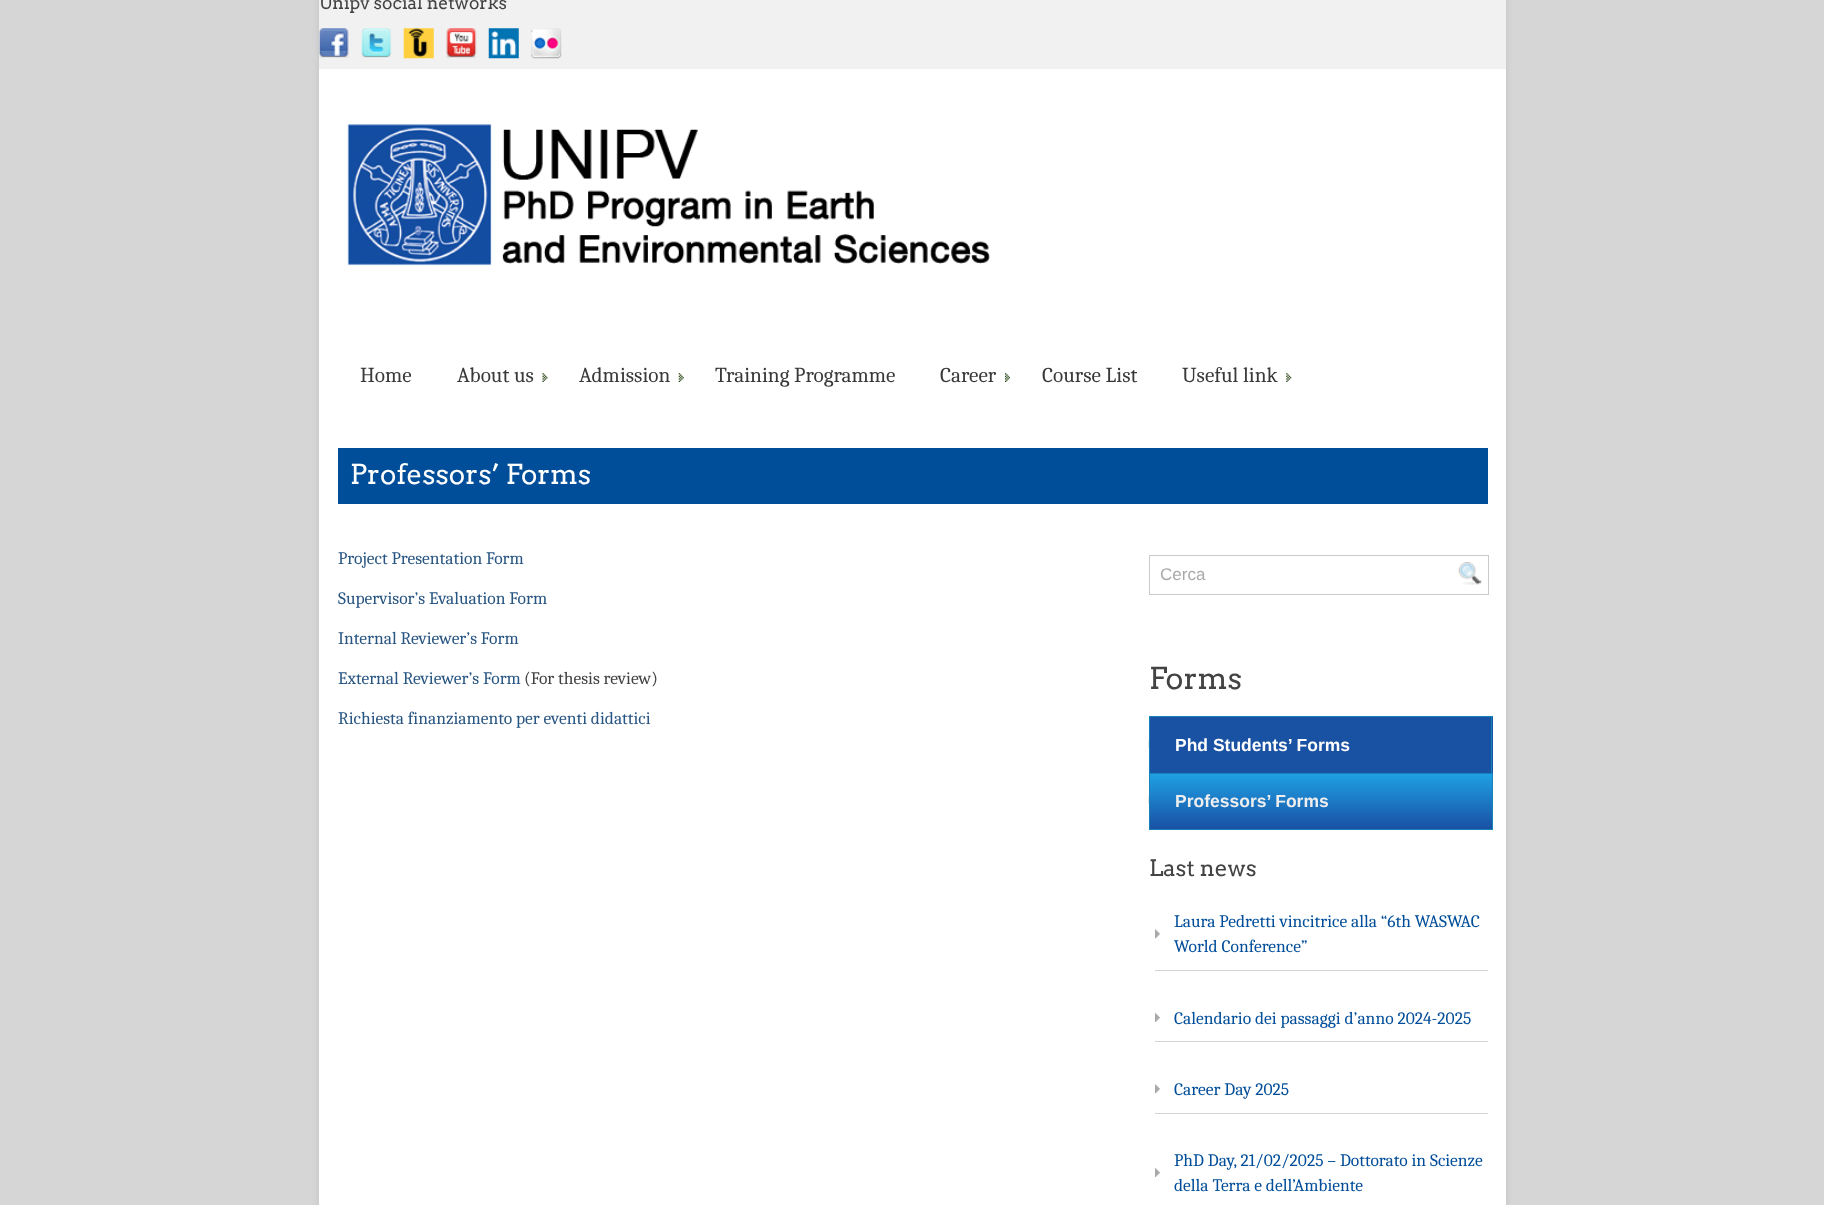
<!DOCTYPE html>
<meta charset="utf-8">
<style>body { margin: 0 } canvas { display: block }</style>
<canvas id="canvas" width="1824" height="1205"></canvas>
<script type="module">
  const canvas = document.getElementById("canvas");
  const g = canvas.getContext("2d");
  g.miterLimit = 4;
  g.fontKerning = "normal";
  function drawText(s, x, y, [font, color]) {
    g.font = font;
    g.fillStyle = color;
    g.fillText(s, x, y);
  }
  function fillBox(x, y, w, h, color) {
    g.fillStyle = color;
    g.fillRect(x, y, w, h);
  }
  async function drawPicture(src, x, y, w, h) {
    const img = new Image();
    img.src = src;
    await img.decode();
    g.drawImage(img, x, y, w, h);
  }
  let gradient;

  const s1 = ["17.5px Arvo", "#444343"];
  const s2 = ["21.25px Caladea", "#393939"];
  const s3 = ["27.5px Arvo", "#FFFFFF"];
  const s4 = ["17.5px Caladea", "#285582"];
  const s5 = ["17.5px Caladea", "#444343"];
  const s6 = ["17px Liberation Sans", "#ABAAAA"];
  const s7 = ["30px Arvo", "#444343"];
  const s8 = ["bold 17.5px Liberation Sans", "#FFFFFF"];
  const s9 = ["bold 17.5px Liberation Sans", "#EEEEEE"];
  const s10 = ["22.5px Arvo", "#444343"];
  const s11 = ["17.5px Caladea", "#004D99"];

  fillBox(0, 0, 1824, 1205, "#D6D6D6");
  g.fillStyle = "#C1C1C1";
  g.filter = "blur(3px)";
  g.beginPath();
  g.rect(319, -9, 1187, 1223);
  g.fill();
  g.filter = "none";
  fillBox(319, 69, 1187, 1136, "#FFFFFF");
  fillBox(319, 0, 1187, 69, "#F1F1F1");
  drawText("Unipv social networks", 319, 9, s1);
  await drawPicture("pic1.png", 319, 28, 30, 30);
  await drawPicture("pic2.png", 361, 28, 31, 30);
  await drawPicture("pic3.png", 403, 28, 31, 31);
  await drawPicture("pic4.png", 446, 28, 31, 30);
  await drawPicture("pic5.png", 488, 28, 31, 31);
  await drawPicture("pic6.png", 531, 28, 31, 31);
  await drawPicture("pic7.png", 347, 124, 643, 142);
  drawText("Home", 360, 382, s2);
  drawText("About us", 457, 382, s2);
  await drawPicture("pic8.png", 542, 373, 6, 9);
  drawText("Admission", 579, 382, s2);
  await drawPicture("pic9.png", 678, 373, 6, 9);
  drawText("Training Programme", 715, 382, s2);
  drawText("Career", 940, 382, s2);
  await drawPicture("pic10.png", 1005, 373, 5, 9);
  drawText("Course List", 1042, 382, s2);
  drawText("Useful link", 1182, 382, s2);
  await drawPicture("pic11.png", 1286, 373, 6, 9);
  fillBox(338, 448, 1150, 56, "#004D99");
  drawText("Professors’ Forms", 350, 484, s3);
  drawText("Project Presentation Form", 338, 564, s4);
  drawText("Supervisor’s Evaluation Form", 338, 604, s4);
  drawText("Internal Reviewer’s Form", 338, 644, s4);
  drawText("External Reviewer’s Form", 338, 684, s4);
  drawText("(For thesis review)", 524, 684, s5);
  drawText("Richiesta finanziamento per eventi didattici", 338, 724, s4);
  g.strokeStyle = "#CACACA";
  g.strokeRect(1149.5, 555.5, 339, 39);
  drawText("Cerca", 1160, 580, s6);
  await drawPicture("pic12.png", 1458, 562, 24, 23);
  drawText("Forms", 1149, 689, s7);
  await drawPicture("pic13.png", 1148, 739, 1, 10);
  fillBox(1150, 717, 343, 56, "#1951A3");
  fillBox(1149, 716, 344, 1, "#1682BA");
  fillBox(1491, 716, 1, 57, "#1682BA");
  fillBox(1149, 716, 1, 57, "#1682BA");
  drawText("Phd Students’ Forms", 1175, 751, s8);
  await drawPicture("pic14.png", 1148, 795, 1, 10);
  gradient = g.createLinearGradient(1321, 774, 1321, 829);
  gradient.addColorStop(0, "#1FA0E4");
  gradient.addColorStop(1, "#1951A3");
  g.fillStyle = gradient;
  g.fillRect(1150, 774, 342, 55);
  g.strokeStyle = "#1682BA";
  g.strokeRect(1149.5, 773.5, 343, 56);
  drawText("Professors’ Forms", 1175, 807, s9);
  drawText("Last news", 1149, 876, s10);
  await drawPicture("pic15.png", 1155, 929, 5, 10);
  fillBox(1155, 970, 333, 1, "#D4D4D4");
  drawText("Laura Pedretti vincitrice alla “6th WASWAC", 1174, 927, s11);
  drawText("World Conference”", 1174, 952, s11);
  await drawPicture("pic16.png", 1155, 1013, 5, 9);
  fillBox(1155, 1041, 333, 1, "#D4D4D4");
  drawText("Calendario dei passaggi d’anno 2024-2025", 1174, 1024, s11);
  await drawPicture("pic15.png", 1155, 1084, 5, 10);
  fillBox(1155, 1113, 333, 1, "#D4D4D4");
  drawText("Career Day 2025", 1174, 1095, s11);
  await drawPicture("pic16.png", 1155, 1168, 5, 9);
  drawText("PhD Day, 21/02/2025 – Dottorato in Scienze", 1174, 1166, s11);
  drawText("della Terra e dell’Ambiente", 1174, 1191, s11);
</script>
